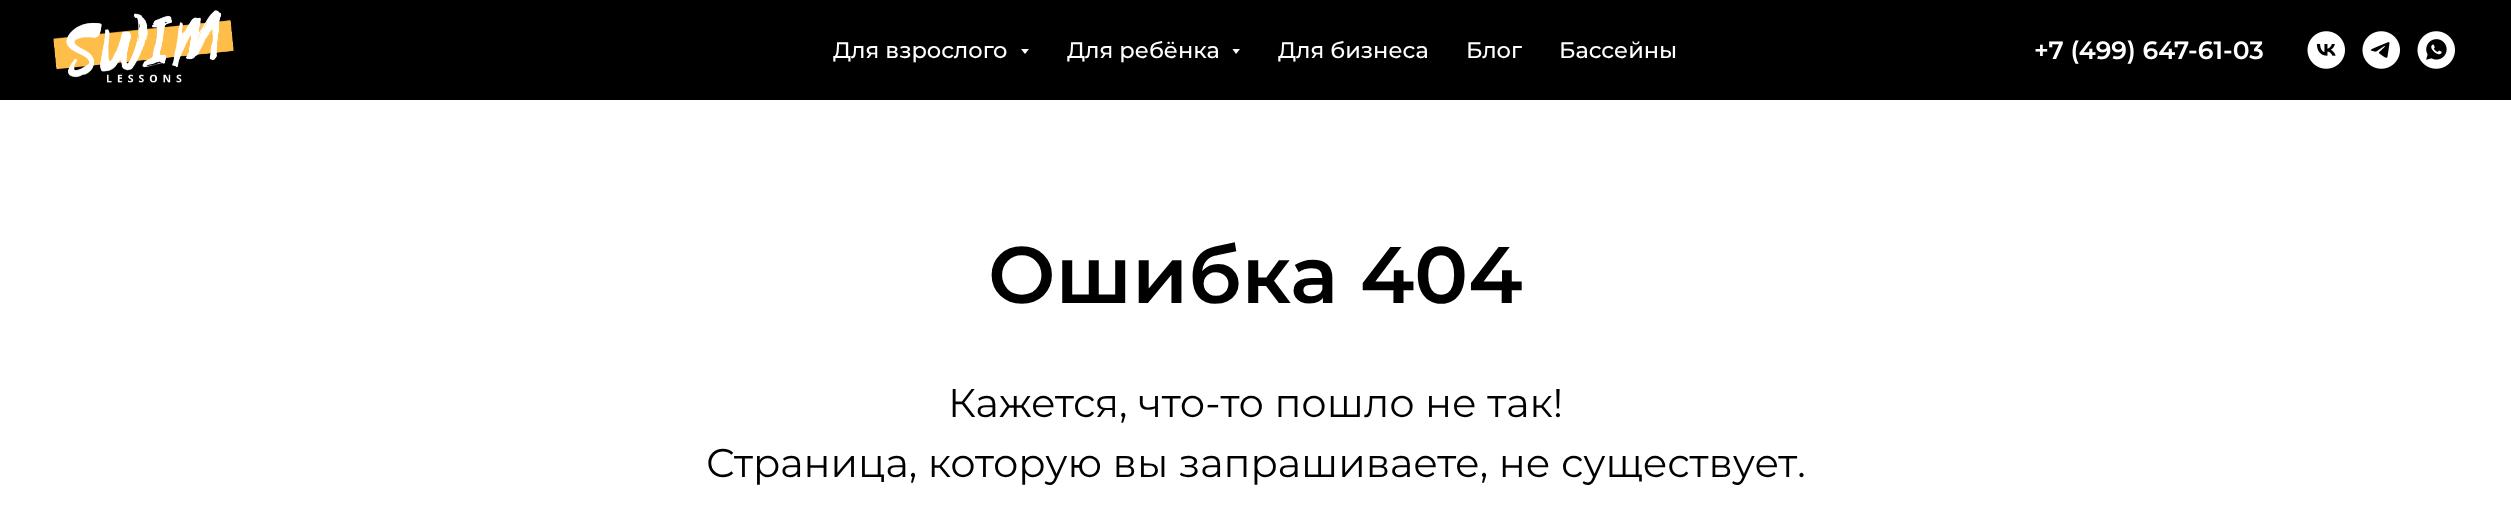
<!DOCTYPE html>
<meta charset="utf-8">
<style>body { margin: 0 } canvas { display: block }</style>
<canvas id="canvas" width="2511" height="507"></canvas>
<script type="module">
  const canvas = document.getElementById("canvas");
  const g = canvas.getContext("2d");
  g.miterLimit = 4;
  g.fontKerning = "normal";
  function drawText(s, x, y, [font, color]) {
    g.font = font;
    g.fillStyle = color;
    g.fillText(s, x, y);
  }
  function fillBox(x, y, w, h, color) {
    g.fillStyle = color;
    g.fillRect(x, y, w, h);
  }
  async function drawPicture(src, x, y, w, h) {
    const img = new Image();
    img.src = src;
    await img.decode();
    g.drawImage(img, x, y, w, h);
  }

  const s1 = ["500 22.5px Montserrat", "#FFFFFF"];
  const s2 = ["600 25px Montserrat", "#FFFFFF"];
  const s3 = ["600 80px Montserrat", "#000000"];
  const s4 = ["40px Montserrat", "#000000"];

  fillBox(0, 0, 2511, 507, "#FFFFFF");
  fillBox(0, 0, 2511, 100, "#000000");
  await drawPicture("pic1.png", 53, 10, 181, 73);
  drawText("Для взрослого", 833, 58, s1);
  g.beginPath();
  g.moveTo(1021, 49);
  g.lineTo(1029, 49);
  g.lineTo(1025, 54);
  g.closePath();
  g.fill();
  drawText("Для ребёнка", 1067, 58, s1);
  g.beginPath();
  g.moveTo(1232.5, 49);
  g.lineTo(1240, 49);
  g.lineTo(1236, 54);
  g.closePath();
  g.fill();
  drawText("Для бизнеса", 1278, 58, s1);
  drawText("Блог", 1466, 58, s1);
  drawText("Бассейны", 1559, 58, s1);
  drawText("+7 (499) 647-61-03", 2034, 59, s2);
  await drawPicture("pic2.png", 2307, 31, 38, 38);
  await drawPicture("pic3.png", 2362, 31, 38, 38);
  await drawPicture("pic4.png", 2417, 31, 38, 38);
  drawText("Ошибка 404", 988, 303, s3);
  drawText("Кажется, что-то пошло не так!", 948, 417, s4);
  drawText("Страница, которую вы запрашиваете, не существует.", 706, 477, s4);
</script>
